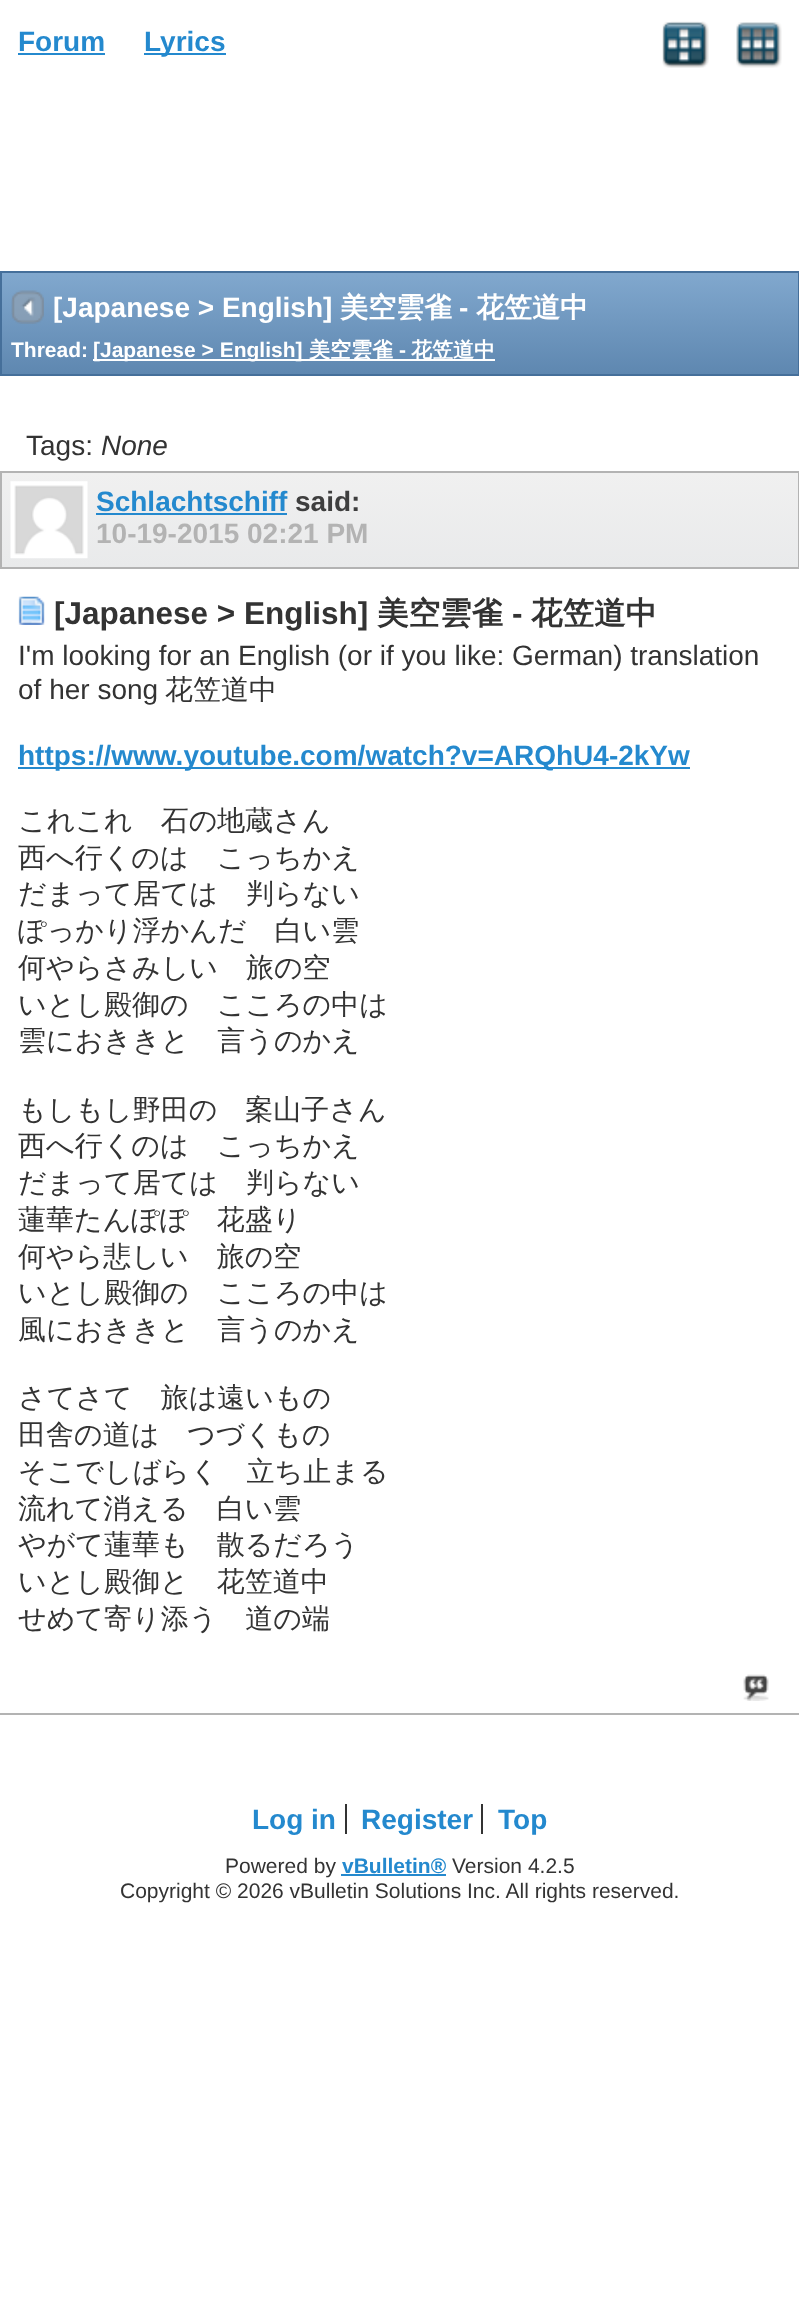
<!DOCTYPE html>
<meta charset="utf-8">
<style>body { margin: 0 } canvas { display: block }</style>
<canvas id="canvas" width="799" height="2316"></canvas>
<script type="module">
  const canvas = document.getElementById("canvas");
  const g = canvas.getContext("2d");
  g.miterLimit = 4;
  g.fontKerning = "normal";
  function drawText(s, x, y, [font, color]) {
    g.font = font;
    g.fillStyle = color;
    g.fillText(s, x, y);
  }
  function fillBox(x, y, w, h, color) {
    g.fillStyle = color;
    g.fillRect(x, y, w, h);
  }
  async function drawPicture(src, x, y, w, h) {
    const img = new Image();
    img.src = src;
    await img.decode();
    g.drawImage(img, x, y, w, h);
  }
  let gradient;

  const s1 = ["bold 28px Liberation Sans", "#2489CE"];
  const s2 = ["bold 28px Liberation Sans", "#FFFFFF"];
  const s3 = ["bold 28px WenQuanYi Zen Hei", "#FFFFFF"];
  const s4 = ["bold 21px Liberation Sans", "#FFFFFF"];
  const s5 = ["bold 21px WenQuanYi Zen Hei", "#FFFFFF"];
  const s6 = ["28px Liberation Sans", "#333333"];
  const s7 = ["italic 28px Liberation Sans", "#333333"];
  const s8 = ["bold 28px Liberation Sans", "#3E3E3E"];
  const s9 = ["bold 28px Liberation Sans", "#B3B3B3"];
  const s10 = ["bold 31.5px Liberation Sans", "#333333"];
  const s11 = ["bold 31.5px WenQuanYi Zen Hei", "#333333"];
  const s12 = ["500 28px WenQuanYi Zen Hei", "#333333"];
  const s13 = ["21px Liberation Sans", "#333333"];
  const s14 = ["bold 21px Liberation Sans", "#2489CE"];

  fillBox(0, 0, 799, 2316, "#FFFFFF");
  drawText("Forum", 18, 51, s1);
  fillBox(18, 53, 87, 2, "#2489CE");
  fillBox(144, 53, 82, 2, "#2489CE");
  drawText("Lyrics", 144, 51, s1);
  await drawPicture("pic1.png", 662, 21, 47, 47);
  await drawPicture("pic2.png", 736, 22, 46, 46);
  gradient = g.createLinearGradient(400, 273, 400, 375);
  gradient.addColorStop(0, "#81A8CE");
  gradient.addColorStop(1, "#5E87B0");
  g.fillStyle = gradient;
  g.fillRect(2, 273, 796, 101);
  g.strokeStyle = "#456F9A";
  g.lineWidth = 2;
  g.strokeRect(1, 272, 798, 103);
  await drawPicture("pic3.png", 11, 290, 33, 34);
  drawText("[Japanese > English]", 53, 317, s2);
  drawText("美空雲雀", 340, 317, s3);
  drawText("-", 459, 317, s2);
  drawText("花笠道中", 476, 317, s3);
  drawText("Thread:", 11, 357, s4);
  fillBox(93, 359, 402, 2, "#FFFFFF");
  drawText("[Japanese > English]", 93, 357, s4);
  drawText("美空雲雀", 309, 357, s5);
  drawText("-", 399, 357, s4);
  drawText("花笠道中", 411, 357, s5);
  drawText("Tags:", 26, 455, s6);
  drawText("None", 101, 455, s7);
  fillBox(0, 1713, 799, 2, "#B3B3B3");
  gradient = g.createLinearGradient(400, 473, 400, 567);
  gradient.addColorStop(0, "#F0F0F0");
  gradient.addColorStop(1, "#E9EAEB");
  g.fillStyle = gradient;
  g.fillRect(2, 473, 796, 94);
  g.strokeStyle = "#B3B3B3";
  g.strokeRect(1, 472, 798, 96);
  await drawPicture("pic4.png", 10, 481, 78, 78);
  drawText("Schlachtschiff", 96, 511, s1);
  fillBox(96, 513, 191, 2, "#2489CE");
  drawText("said:", 295, 511, s8);
  drawText("10-19-2015 02:21 PM", 96, 543, s9);
  await drawPicture("pic5.png", 18, 596, 27, 29);
  drawText("[Japanese > English]", 54, 624, s10);
  drawText("美空雲雀", 377, 624, s11);
  drawText("-", 512, 624, s10);
  drawText("花笠道中", 531, 624, s11);
  drawText("I'm looking for an English (or if you like: German) translation", 18, 665, s6);
  drawText("of her song", 18, 699, s6);
  drawText("花笠道中", 165, 699, s12);
  fillBox(18, 767, 672, 2, "#2489CE");
  drawText("https://www.youtube.com/watch?v=ARQhU4-2kYw", 18, 765, s1);
  drawText("これこれ　石の地蔵さん", 18, 830, s12);
  drawText("西へ行くのは　こっちかえ", 18, 867, s12);
  drawText("だまって居ては　判らない", 18, 903, s12);
  drawText("ぽっかり浮かんだ　白い雲", 18, 940, s12);
  drawText("何やらさみしい　旅の空", 18, 977, s12);
  drawText("いとし殿御の　こころの中は", 18, 1014, s12);
  drawText("雲におききと　言うのかえ", 18, 1050, s12);
  drawText("もしもし野田の　案山子さん", 18, 1119, s12);
  drawText("西へ行くのは　こっちかえ", 18, 1155, s12);
  drawText("だまって居ては　判らない", 18, 1192, s12);
  drawText("蓮華たんぽぽ　花盛り", 18, 1229, s12);
  drawText("何やら悲しい　旅の空", 18, 1266, s12);
  drawText("いとし殿御の　こころの中は", 18, 1302, s12);
  drawText("風におききと　言うのかえ", 18, 1339, s12);
  drawText("さてさて　旅は遠いもの", 18, 1407, s12);
  drawText("田舎の道は　つづくもの", 18, 1444, s12);
  drawText("そこでしばらく　立ち止まる", 18, 1481, s12);
  drawText("流れて消える　白い雲", 18, 1518, s12);
  drawText("やがて蓮華も　散るだろう", 18, 1554, s12);
  drawText("いとし殿御と　花笠道中", 18, 1591, s12);
  drawText("せめて寄り添う　道の端", 18, 1628, s12);
  await drawPicture("pic6.png", 743, 1674, 26, 27);
  drawText("Log in", 252, 1829, s1);
  fillBox(345, 1804, 2, 30, "#333333");
  drawText("Register", 361, 1829, s1);
  fillBox(481, 1804, 2, 30, "#333333");
  drawText("Top", 498, 1829, s1);
  drawText("Powered by", 225, 1873, s13);
  drawText("vBulletin®", 342, 1873, s14);
  fillBox(341, 1874, 105, 2, "#2489CE");
  drawText("Version 4.2.5", 452, 1873, s13);
  drawText("Copyright © 2026 vBulletin Solutions Inc. All rights reserved.", 120, 1898, s13);
</script>
